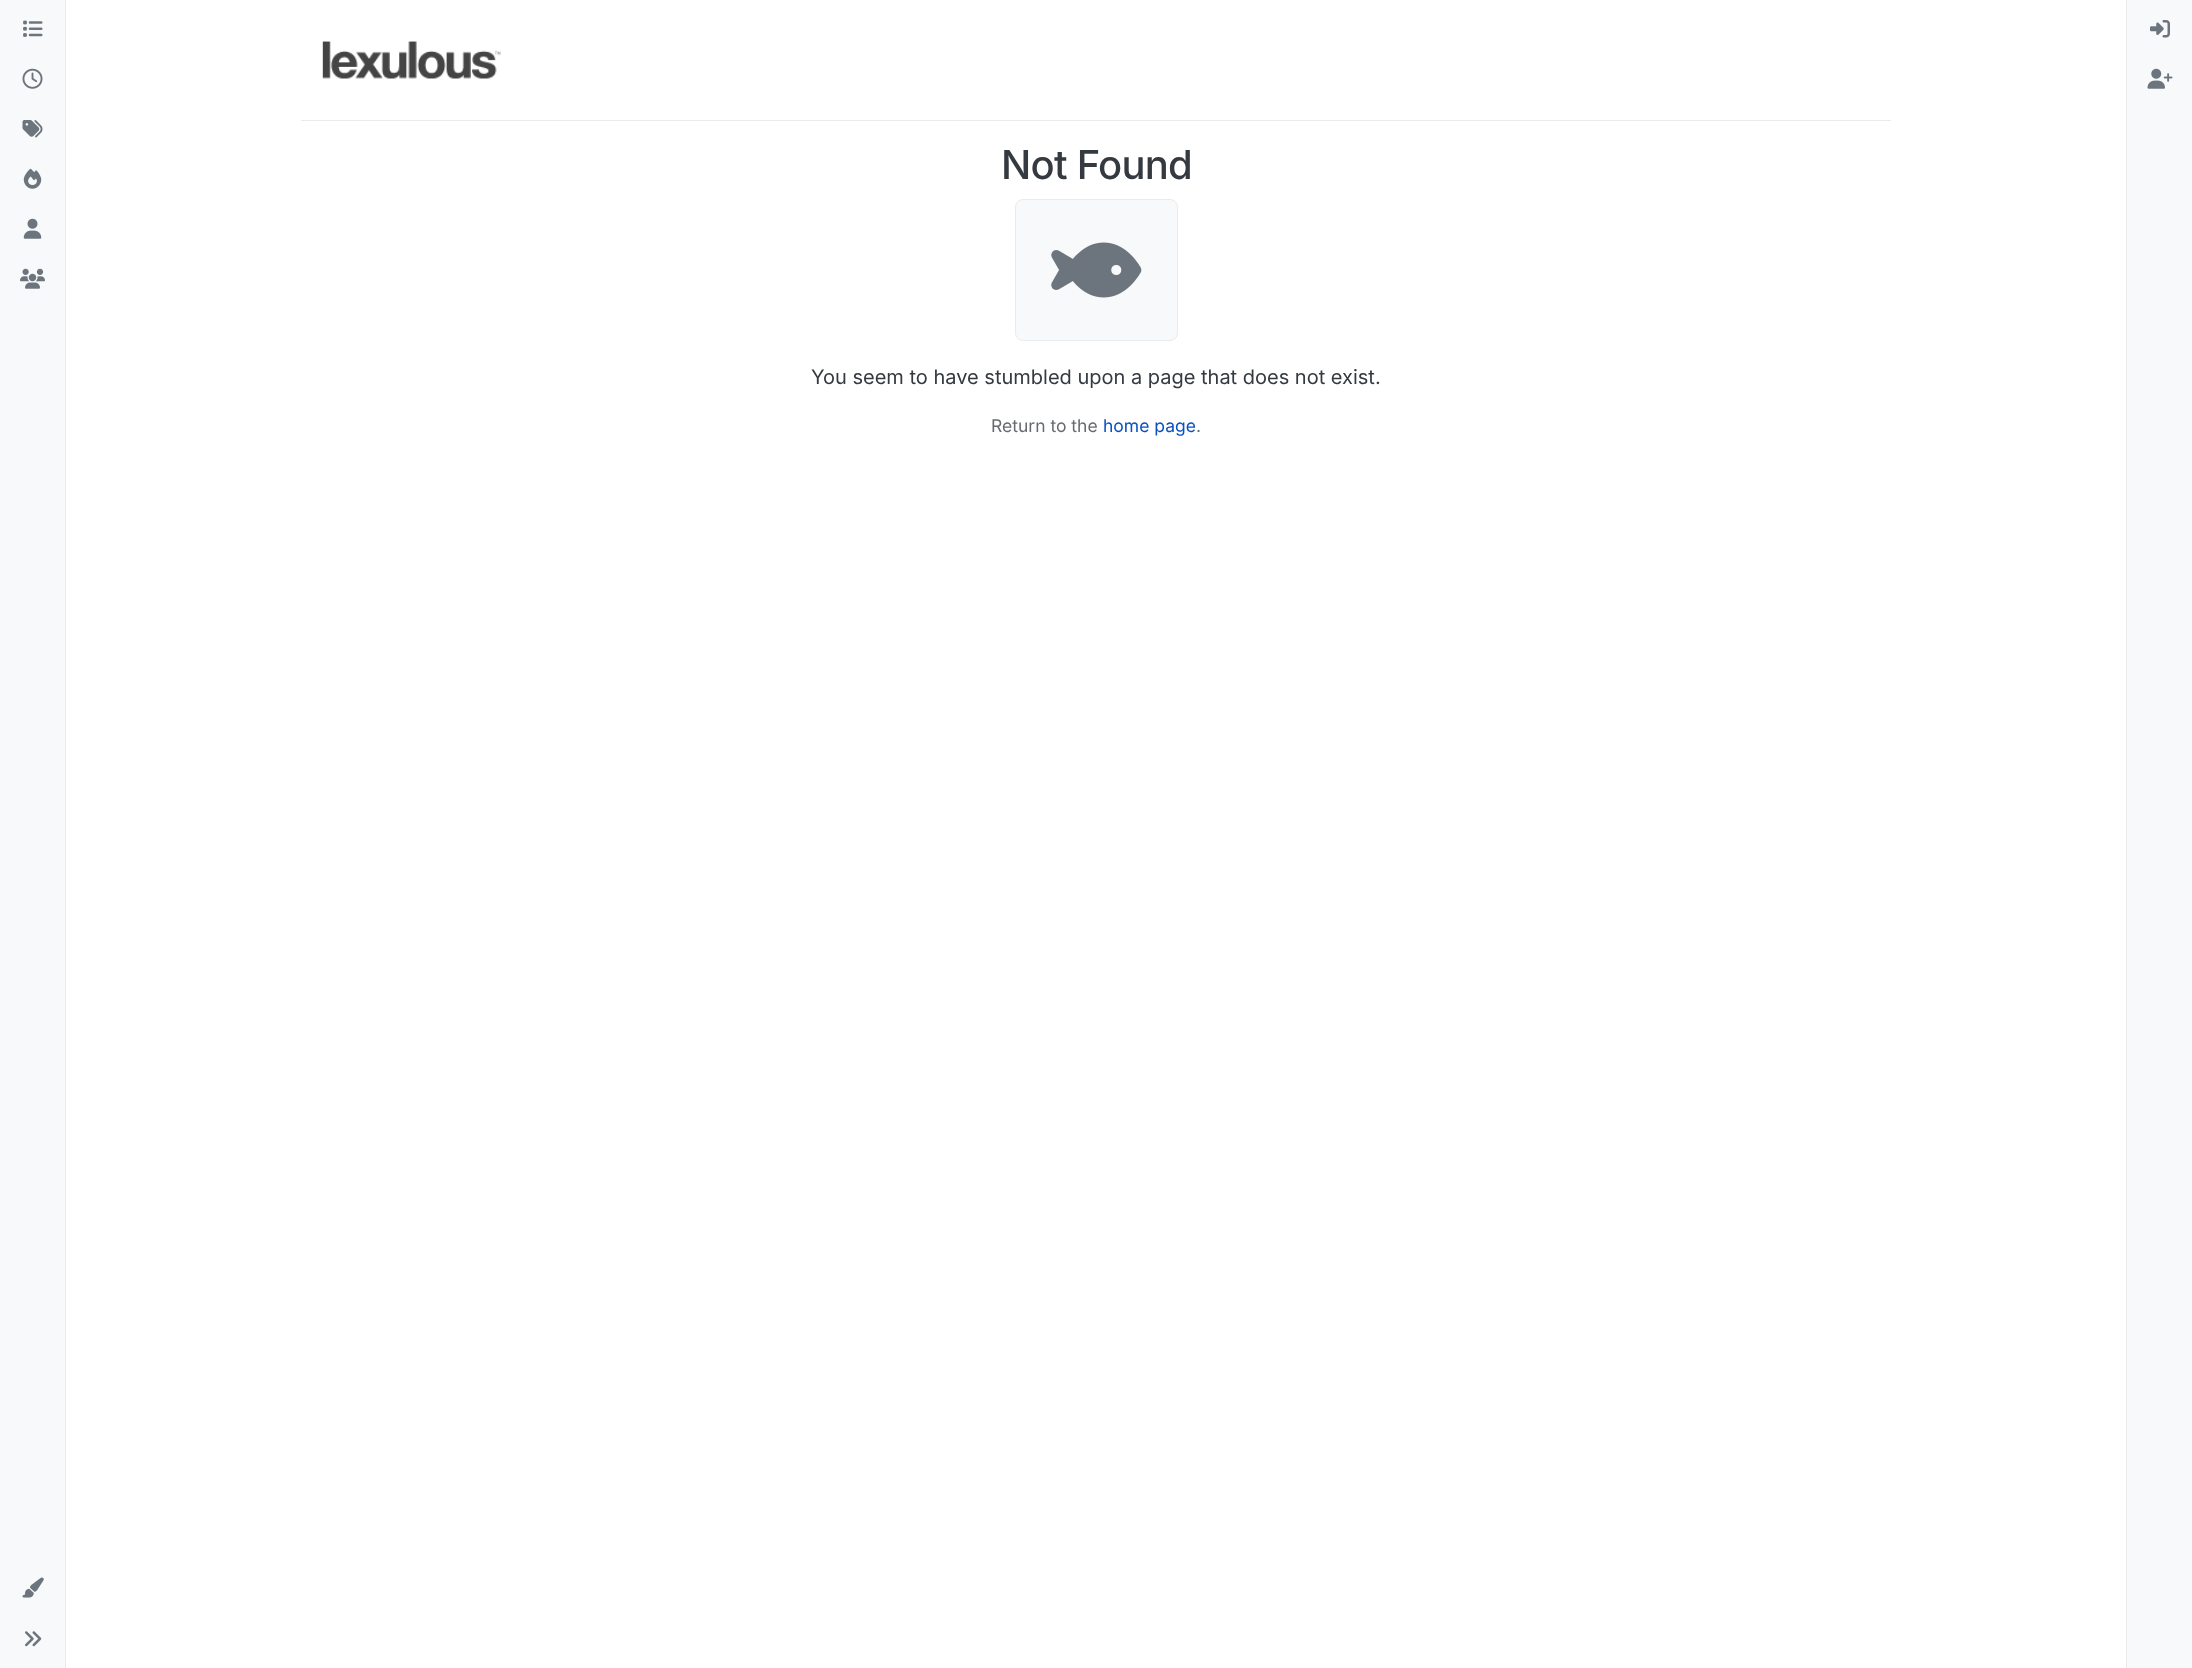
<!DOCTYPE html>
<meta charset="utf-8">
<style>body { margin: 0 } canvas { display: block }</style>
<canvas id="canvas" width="2192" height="1668"></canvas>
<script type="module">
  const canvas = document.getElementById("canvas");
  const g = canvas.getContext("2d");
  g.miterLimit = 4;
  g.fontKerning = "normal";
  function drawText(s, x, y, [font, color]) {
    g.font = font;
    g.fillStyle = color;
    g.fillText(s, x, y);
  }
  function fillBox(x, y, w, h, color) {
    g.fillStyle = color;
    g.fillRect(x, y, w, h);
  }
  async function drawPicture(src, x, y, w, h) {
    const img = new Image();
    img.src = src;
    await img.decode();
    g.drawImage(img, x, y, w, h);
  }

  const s1 = ["500 40px Inter", "#343A40"];
  const s2 = ["20px Inter", "#343A40"];
  const s3 = ["17.5px Inter", "#676B70"];
  const s4 = ["17.5px Inter", "#0951BE"];

  fillBox(0, 0, 2192, 1668, "#FFFFFF");
  fillBox(0, 0, 65, 1668, "#F8F9FA");
  fillBox(65, 0, 1, 1668, "#E9ECEF");
  await drawPicture("pic1.png", 23, 20, 20, 17);
  await drawPicture("pic2.png", 22, 68, 21, 21);
  await drawPicture("pic3.png", 22, 120, 21, 18);
  await drawPicture("pic4.png", 23, 168, 19, 21);
  await drawPicture("pic5.png", 23, 218, 19, 21);
  await drawPicture("pic6.png", 20, 268, 25, 21);
  await drawPicture("pic7.png", 22, 1577, 22, 21);
  await drawPicture("pic8.png", 25, 1631, 17, 16);
  fillBox(301, 120, 1590, 1, "#E9ECEF");
  await drawPicture("pic9.png", 322, 41, 179, 38);
  g.letterSpacing = "-0.75px";
  drawText("Not Found", 1001, 179, s1);
  g.fillStyle = "#F8F9FA";
  g.beginPath();
  g.roundRect(1015.5, 199.5, 162, 141, 7.5);
  g.fill();
  g.strokeStyle = "#E9ECEF";
  g.stroke();
  await drawPicture("pic10.png", 1051, 242, 91, 56);
  g.letterSpacing = "0px";
  drawText("You seem to have stumbled upon a page that does not exist.", 811, 384, s2);
  drawText("Return to the", 991, 432, s3);
  drawText("home page", 1103, 432, s4);
  drawText(".", 1196, 432, s3);
  fillBox(2127, 0, 65, 1668, "#F8F9FA");
  fillBox(2126, 0, 1, 1668, "#E9ECEF");
  await drawPicture("pic11.png", 2150, 20, 20, 18);
  await drawPicture("pic12.png", 2147, 68, 26, 21);
</script>
